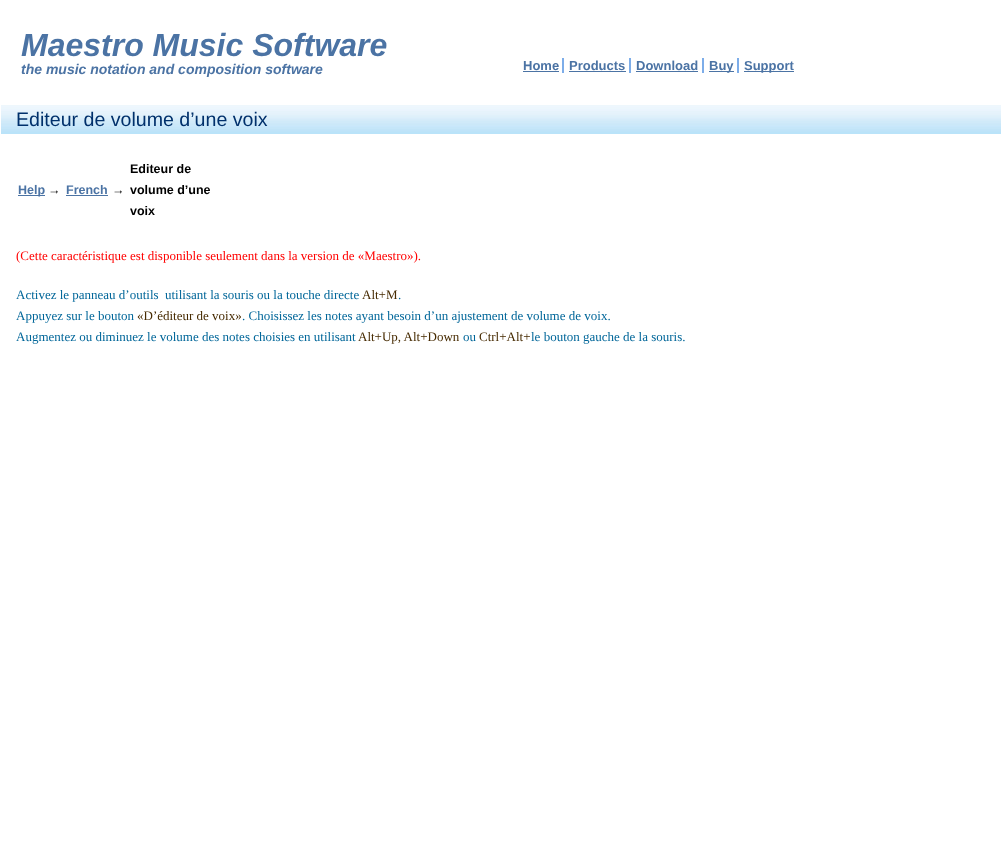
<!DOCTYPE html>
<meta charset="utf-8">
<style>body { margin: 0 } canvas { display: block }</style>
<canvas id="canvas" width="1001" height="846"></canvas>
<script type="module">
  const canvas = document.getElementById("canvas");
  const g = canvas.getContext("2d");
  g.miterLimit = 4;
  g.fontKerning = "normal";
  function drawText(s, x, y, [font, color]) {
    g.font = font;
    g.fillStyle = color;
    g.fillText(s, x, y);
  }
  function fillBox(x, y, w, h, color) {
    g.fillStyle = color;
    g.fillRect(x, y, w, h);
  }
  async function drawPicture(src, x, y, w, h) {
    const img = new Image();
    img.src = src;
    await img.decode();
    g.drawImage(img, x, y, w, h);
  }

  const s1 = ["italic bold 32px Liberation Sans", "#4B73A4"];
  const s2 = ["italic bold 14px Liberation Sans", "#4B73A4"];
  const s3 = ["bold 13px Liberation Sans", "#4B73A4"];
  const s4 = ["19.6px Liberation Sans", "#00306B"];
  const s5 = ["bold 12.5px Liberation Sans", "#4B73A4"];
  const s6 = ["bold 12.5px Liberation Sans", "#000000"];
  const s7 = ["13px Liberation Serif", "#FF0000"];
  const s8 = ["13px Liberation Serif", "#006699"];
  const s9 = ["13px Liberation Serif", "#462A01"];

  fillBox(0, 0, 1001, 846, "#FFFFFF");
  drawText("Maestro Music Software", 21, 56, s1);
  drawText("the music notation and composition software", 21, 74, s2);
  drawText("Home", 523, 70, s3);
  fillBox(523, 71, 36, 1, "#4B73A4");
  drawText("Products", 569, 70, s3);
  fillBox(562, 58, 2, 15, "#7DADE9");
  fillBox(569, 71, 57, 1, "#4B73A4");
  drawText("Download", 636, 70, s3);
  fillBox(629, 58, 2, 15, "#7DADE9");
  fillBox(636, 71, 62, 1, "#4B73A4");
  fillBox(709, 71, 25, 1, "#4B73A4");
  drawText("Buy", 709, 70, s3);
  fillBox(702, 58, 2, 15, "#7DADE9");
  fillBox(744, 71, 50, 1, "#4B73A4");
  drawText("Support", 744, 70, s3);
  fillBox(737, 58, 2, 15, "#7DADE9");
  await drawPicture("pic1.png", 1, 105, 1000, 29);
  drawText("Editeur de volume d’une voix", 16, 126, s4);
  fillBox(18, 195, 27, 1, "#4B73A4");
  drawText("Help", 18, 194, s5);
  drawText("→", 48, 194, s6);
  drawText("French", 66, 194, s5);
  fillBox(66, 195, 42, 1, "#4B73A4");
  drawText("→", 112, 194, s6);
  drawText("Editeur de", 130, 173, s6);
  drawText("volume d’une", 130, 194, s6);
  drawText("voix", 130, 215, s6);
  drawText("(Cette caractéristique est disponible seulement dans la version de «Maestro»).", 16, 260, s7);
  drawText("Activez le panneau d’outils", 16, 299, s8);
  drawText("utilisant la souris ou la touche directe", 165, 299, s8);
  drawText("Alt+M", 362, 299, s9);
  drawText(".", 398, 299, s8);
  drawText("Appuyez sur le bouton", 16, 320, s8);
  drawText("«D’éditeur de voix»", 137, 320, s9);
  drawText(". Choisissez les notes ayant besoin d’un ajustement de volume de voix.", 242, 320, s8);
  drawText("Augmentez ou diminuez le volume des notes choisies en utilisant", 16, 341, s8);
  drawText("Alt+Up, Alt+Down", 358, 341, s9);
  drawText("ou", 463, 341, s8);
  drawText("Ctrl+Alt+", 479, 341, s9);
  drawText("le bouton gauche de la souris.", 531, 341, s8);
</script>
